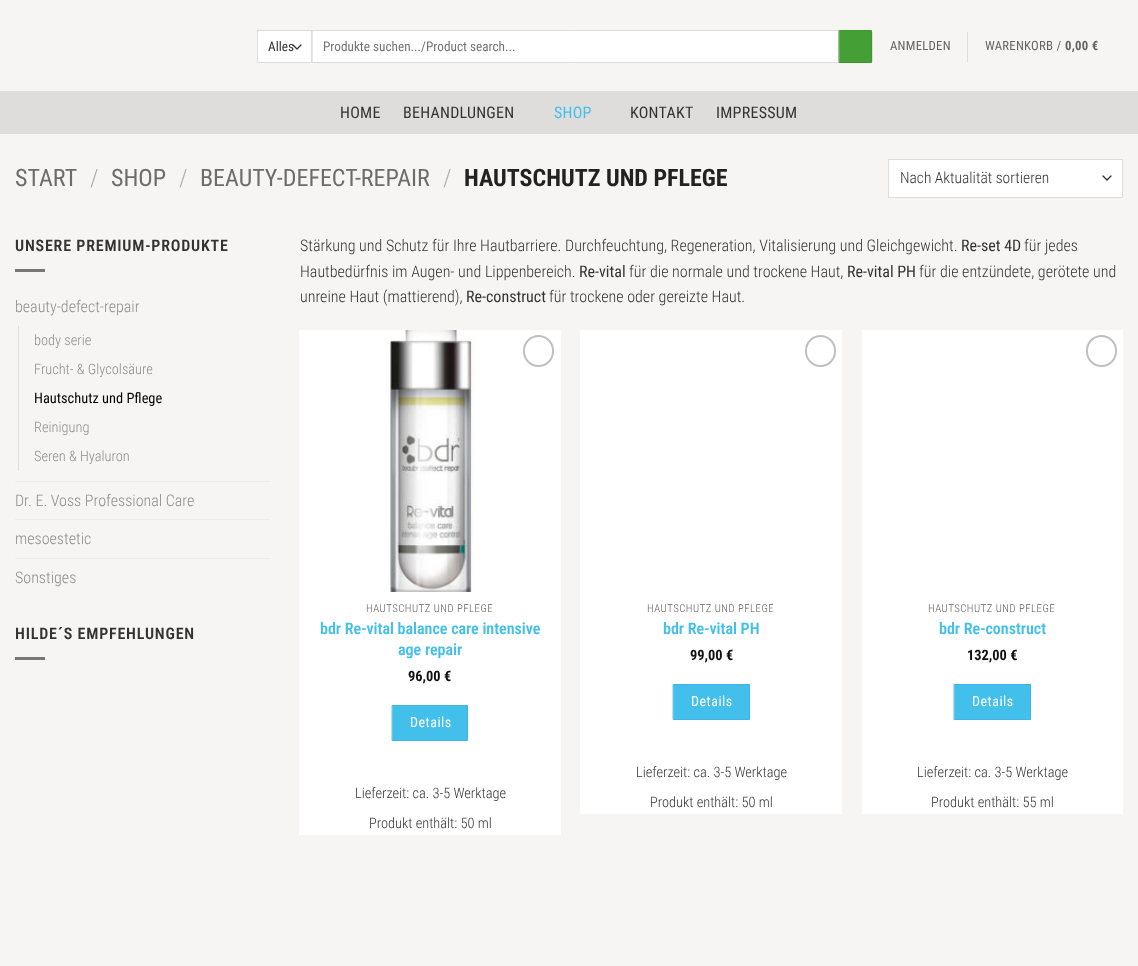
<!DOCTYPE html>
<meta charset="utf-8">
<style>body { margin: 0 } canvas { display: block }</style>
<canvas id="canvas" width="1138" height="966"></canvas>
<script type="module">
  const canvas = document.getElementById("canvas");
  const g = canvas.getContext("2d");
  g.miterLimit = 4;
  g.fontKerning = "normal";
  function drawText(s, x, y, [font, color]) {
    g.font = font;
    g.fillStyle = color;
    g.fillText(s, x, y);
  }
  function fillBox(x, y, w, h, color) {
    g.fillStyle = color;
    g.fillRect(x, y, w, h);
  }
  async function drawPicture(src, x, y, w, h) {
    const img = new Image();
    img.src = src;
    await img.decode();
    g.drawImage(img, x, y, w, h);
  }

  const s1 = ["13.25px Roboto Condensed", "#333333"];
  const s2 = ["13.25px Roboto Condensed", "#757575"];
  const s3 = ["12.75px Roboto Condensed", "#646464"];
  const s4 = ["bold 12.75px Roboto Condensed", "#646464"];
  const s5 = ["16px Roboto Condensed", "#333333"];
  const s6 = ["16px Roboto Condensed", "#42C0EB"];
  const s7 = ["24px Roboto Condensed", "#6D6C6C"];
  const s8 = ["300 24px Roboto Condensed", "#ACABAA"];
  const s9 = ["bold 24px Roboto Condensed", "#222222"];
  const s10 = ["300 15.5px Roboto Condensed", "#333333"];
  const s11 = ["600 16px Roboto Condensed", "#333333"];
  const s12 = ["300 16px Roboto Condensed", "#8E8E8E"];
  const s13 = ["300 14.4px Roboto Condensed", "#8E8E8E"];
  const s14 = ["14.4px Roboto Condensed", "#000000"];
  const s15 = ["300 16px Roboto Condensed", "#333333"];
  const s16 = ["300 10.75px Roboto Condensed", "#5C5C5C"];
  const s17 = ["600 16px Roboto Condensed", "#42C0EB"];
  const s18 = ["bold 14.4px Roboto Condensed", "#111111"];
  const s19 = ["14px Roboto Condensed", "#FFFFFF"];
  const s20 = ["300 14.4px Roboto Condensed", "#333333"];

  fillBox(0, 0, 1138, 966, "#F7F5F4");
  fillBox(258, 31, 53, 31, "#FFFFFF");
  g.beginPath();
  g.moveTo(293, 45);
  g.lineTo(297, 49);
  g.lineTo(301, 45);
  g.strokeStyle = "#333333";
  g.lineWidth = 1.3;
  g.lineCap = "round";
  g.lineJoin = "round";
  g.stroke();
  g.strokeStyle = "#DDDDDD";
  g.lineWidth = 1;
  g.lineJoin = "miter";
  g.strokeRect(257.5, 30.5, 54, 32);
  drawText("Alles", 268, 51, s1);
  g.fillStyle = "#FFFFFF";
  g.beginPath();
  g.rect(312.5, 30.5, 526, 32);
  g.fill();
  g.stroke();
  drawText("Produkte suchen.../Product search...", 323, 51, s2);
  g.fillStyle = "#449F35";
  g.beginPath();
  g.rect(839.5, 30.5, 32, 32);
  g.fill();
  g.strokeStyle = "#419732";
  g.stroke();
  fillBox(872, 32, 1, 30, "#DEDDDC");
  g.letterSpacing = "0.25px";
  drawText("ANMELDEN", 890, 50, s3);
  fillBox(967, 32, 1, 30, "#DEDDDC");
  drawText("WARENKORB /", 985, 50, s3);
  drawText("0,00 €", 1065, 50, s4);
  fillBox(0, 91, 1138, 43, "#DFDDDC");
  drawText("HOME", 340, 118, s5);
  drawText("BEHANDLUNGEN", 403, 118, s5);
  drawText("SHOP", 554, 118, s6);
  drawText("KONTAKT", 630, 118, s5);
  drawText("IMPRESSUM", 716, 118, s5);
  g.letterSpacing = "0px";
  drawText("START", 15, 186, s7);
  drawText("/", 90, 186, s8);
  drawText("SHOP", 111, 186, s7);
  drawText("/", 179, 186, s8);
  drawText("BEAUTY-DEFECT-REPAIR", 200, 186, s7);
  drawText("/", 443, 186, s8);
  drawText("HAUTSCHUTZ UND PFLEGE", 464, 186, s9);
  fillBox(889, 160, 233, 37, "#FFFFFF");
  g.beginPath();
  g.moveTo(1103, 176);
  g.lineTo(1107, 180);
  g.lineTo(1111, 176);
  g.strokeStyle = "#333333";
  g.lineWidth = 1.3;
  g.lineJoin = "round";
  g.stroke();
  g.strokeStyle = "#DDDDDD";
  g.lineWidth = 1;
  g.lineJoin = "miter";
  g.strokeRect(888.5, 159.5, 234, 38);
  drawText("Nach Aktualität sortieren", 900, 183, s10);
  g.letterSpacing = "0.8px";
  drawText("UNSERE PREMIUM-PRODUKTE", 15, 251, s11);
  fillBox(15, 269, 30, 3, "#777777");
  g.letterSpacing = "0px";
  drawText("beauty-defect-repair", 15, 312, s12);
  fillBox(18, 326, 1, 145, "#DDDDDD");
  drawText("body serie", 34, 345, s13);
  drawText("Frucht- & Glycolsäure", 34, 374, s13);
  drawText("Hautschutz und Pflege", 34, 403, s14);
  drawText("Reinigung", 34, 432, s13);
  drawText("Seren & Hyaluron", 34, 461, s13);
  fillBox(15, 481, 255, 1, "#ECECEC");
  drawText("Dr. E. Voss Professional Care", 15, 506, s12);
  fillBox(15, 519, 255, 1, "#ECECEC");
  drawText("mesoestetic", 15, 544, s12);
  fillBox(15, 558, 255, 1, "#ECECEC");
  drawText("Sonstiges", 15, 583, s12);
  g.letterSpacing = "0.8px";
  drawText("HILDE´S EMPFEHLUNGEN", 15, 639, s11);
  fillBox(15, 657, 30, 3, "#777777");
  g.letterSpacing = "0px";
  drawText("Stärkung und Schutz für Ihre Hautbarriere. Durchfeuchtung, Regeneration, Vitalisierung und Gleichgewicht.", 300, 251, s15);
  drawText("Re-set 4D", 961, 251, s5);
  drawText("für jedes", 1024, 251, s15);
  drawText("Hautbedürfnis im Augen- und Lippenbereich.", 300, 277, s15);
  drawText("Re-vital", 579, 277, s5);
  drawText("für die normale und trockene Haut,", 629, 277, s15);
  drawText("Re-vital PH", 847, 277, s5);
  drawText("für die entzündete, gerötete und", 919, 277, s15);
  drawText("unreine Haut (mattierend),", 300, 302, s15);
  drawText("Re-construct", 466, 302, s5);
  drawText("für trockene oder gereizte Haut.", 549, 302, s15);
  fillBox(299, 330, 262, 505, "#FFFFFF");
  await drawPicture("pic1.png", 384, 330, 91, 262);
  g.beginPath();
  g.roundRect(524, 336, 29, 30, 14.5);
  g.strokeStyle = "#C0C0C0";
  g.lineWidth = 2;
  g.stroke();
  g.letterSpacing = "0.5px";
  drawText("HAUTSCHUTZ UND PFLEGE", 366, 612, s16);
  g.letterSpacing = "0px";
  drawText("bdr Re-vital balance care intensive", 320, 634, s17);
  drawText("age repair", 398, 655, s17);
  drawText("96,00 €", 408, 681, s18);
  g.fillStyle = "#42C0EB";
  g.beginPath();
  g.rect(392.5, 705.5, 75, 35);
  g.fill();
  g.strokeStyle = "#3FB6DF";
  g.lineWidth = 1;
  g.stroke();
  g.letterSpacing = "0.5px";
  drawText("Details", 410, 727, s19);
  g.letterSpacing = "0px";
  drawText("Lieferzeit: ca. 3-5 Werktage", 355, 798, s20);
  drawText("Produkt enthält: 50 ml", 369, 828, s20);
  fillBox(580, 330, 262, 484, "#FFFFFF");
  g.beginPath();
  g.roundRect(806, 336, 29, 30, 14.5);
  g.strokeStyle = "#C0C0C0";
  g.lineWidth = 2;
  g.stroke();
  g.letterSpacing = "0.5px";
  drawText("HAUTSCHUTZ UND PFLEGE", 647, 612, s16);
  g.letterSpacing = "0px";
  drawText("bdr Re-vital PH", 663, 634, s17);
  drawText("99,00 €", 690, 660, s18);
  g.fillStyle = "#42C0EB";
  g.beginPath();
  g.rect(673.5, 684.5, 76, 35);
  g.fill();
  g.strokeStyle = "#3FB6DF";
  g.lineWidth = 1;
  g.stroke();
  g.letterSpacing = "0.5px";
  drawText("Details", 691, 706, s19);
  g.letterSpacing = "0px";
  drawText("Lieferzeit: ca. 3-5 Werktage", 636, 777, s20);
  drawText("Produkt enthält: 50 ml", 650, 807, s20);
  fillBox(862, 330, 261, 484, "#FFFFFF");
  g.beginPath();
  g.roundRect(1087, 336, 29, 30, 14.5);
  g.strokeStyle = "#C0C0C0";
  g.lineWidth = 2;
  g.stroke();
  g.letterSpacing = "0.5px";
  drawText("HAUTSCHUTZ UND PFLEGE", 928, 612, s16);
  g.letterSpacing = "0px";
  drawText("bdr Re-construct", 939, 634, s17);
  drawText("132,00 €", 967, 660, s18);
  g.fillStyle = "#42C0EB";
  g.beginPath();
  g.rect(954.5, 684.5, 76, 35);
  g.fill();
  g.strokeStyle = "#3FB6DF";
  g.lineWidth = 1;
  g.stroke();
  g.letterSpacing = "0.5px";
  drawText("Details", 972, 706, s19);
  g.letterSpacing = "0px";
  drawText("Lieferzeit: ca. 3-5 Werktage", 917, 777, s20);
  drawText("Produkt enthält: 55 ml", 931, 807, s20);
</script>
